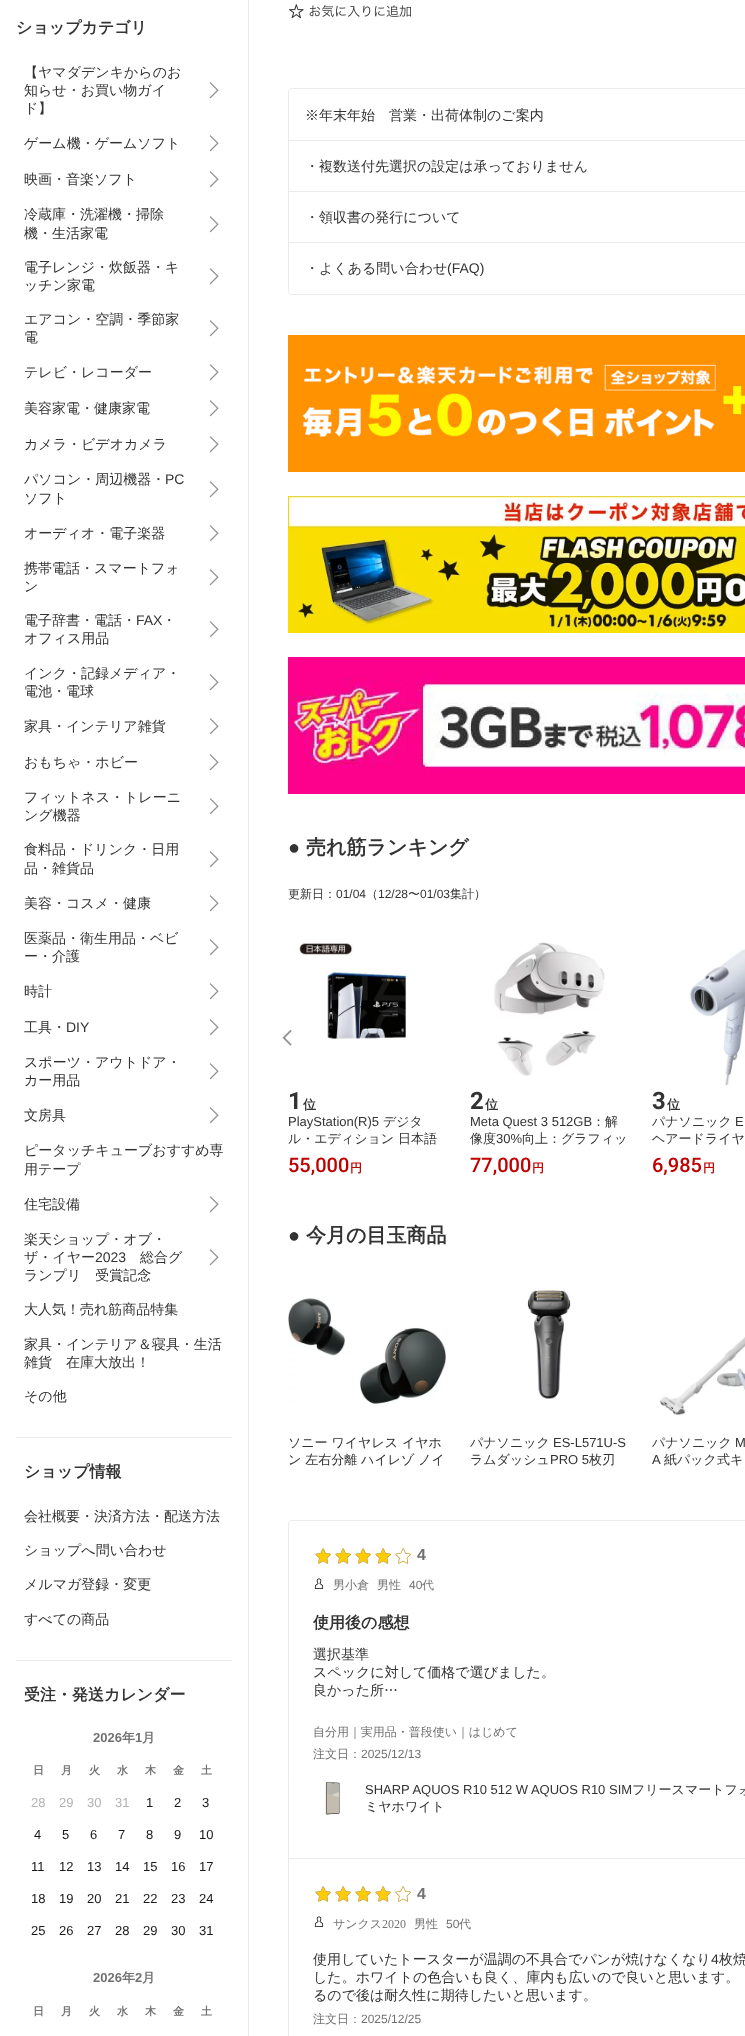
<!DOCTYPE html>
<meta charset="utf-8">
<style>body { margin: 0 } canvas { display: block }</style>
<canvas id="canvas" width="745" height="2036"></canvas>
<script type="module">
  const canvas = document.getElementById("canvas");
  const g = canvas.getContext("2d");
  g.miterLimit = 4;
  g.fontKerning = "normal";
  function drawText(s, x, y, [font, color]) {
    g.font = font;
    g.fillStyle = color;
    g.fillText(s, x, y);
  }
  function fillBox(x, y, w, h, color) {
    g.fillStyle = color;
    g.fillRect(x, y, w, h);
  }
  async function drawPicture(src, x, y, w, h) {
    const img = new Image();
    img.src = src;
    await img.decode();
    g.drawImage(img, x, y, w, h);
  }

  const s1 = ["bold 16px WenQuanYi Zen Hei", "#333333"];
  const s2 = ["500 14px WenQuanYi Zen Hei", "#333333"];
  const s3 = ["14px Liberation Sans", "#333333"];
  const s4 = ["bold 13px Liberation Sans", "#717171"];
  const s5 = ["bold 13px WenQuanYi Zen Hei", "#717171"];
  const s6 = ["bold 11px WenQuanYi Zen Hei", "#717171"];
  const s7 = ["13px Liberation Sans", "#B3B3B3"];
  const s8 = ["13px Liberation Sans", "#1A1A1A"];
  const s9 = ["bold 20px Liberation Sans", "#333333"];
  const s10 = ["bold 20px WenQuanYi Zen Hei", "#333333"];
  const s11 = ["500 12px WenQuanYi Zen Hei", "#333333"];
  const s12 = ["12px Liberation Sans", "#333333"];
  const s13 = ["bold 24px Roboto", "#333333"];
  const s14 = ["bold 13px WenQuanYi Zen Hei", "#333333"];
  const s15 = ["13px Liberation Sans", "#333333"];
  const s16 = ["500 13px WenQuanYi Zen Hei", "#333333"];
  const s17 = ["500 20px Roboto", "#BF0000"];
  const s18 = ["bold 12px WenQuanYi Zen Hei", "#BF0000"];
  const s19 = ["bold 16px Liberation Sans", "#717171"];
  const s20 = ["500 12px WenQuanYi Zen Hei", "#717171"];
  const s21 = ["12px Liberation Sans", "#717171"];
  const s22 = ["12px Liberation Serif", "#717171"];

  fillBox(0, 0, 745, 2036, "#FFFFFF");
  fillBox(248, 0, 1, 2036, "#EBEBEB");
  fillBox(16, 1437, 216, 1, "#EBEBEB");
  drawText("ショップカテゴリ", 16, 33, s1);
  drawText("【ヤマダデンキからのお", 24, 77, s2);
  drawText("知らせ・お買い物ガイ", 24, 95, s2);
  drawText("ド】", 24, 113, s2);
  await drawPicture("pic1.png", 209, 82, 10, 17);
  drawText("ゲーム機・ゲームソフト", 24, 148, s2);
  await drawPicture("pic1.png", 209, 135, 10, 17);
  drawText("映画・音楽ソフト", 24, 184, s2);
  await drawPicture("pic1.png", 209, 171, 10, 17);
  drawText("冷蔵庫・洗濯機・掃除", 24, 219, s2);
  drawText("機・生活家電", 24, 238, s2);
  await drawPicture("pic1.png", 209, 216, 10, 17);
  drawText("電子レンジ・炊飯器・キ", 24, 272, s2);
  drawText("ッチン家電", 24, 290, s2);
  await drawPicture("pic1.png", 209, 268, 10, 17);
  drawText("エアコン・空調・季節家", 24, 324, s2);
  drawText("電", 24, 342, s2);
  await drawPicture("pic1.png", 209, 320, 10, 17);
  drawText("テレビ・レコーダー", 24, 377, s2);
  await drawPicture("pic1.png", 209, 364, 10, 17);
  drawText("美容家電・健康家電", 24, 413, s2);
  await drawPicture("pic1.png", 209, 400, 10, 17);
  drawText("カメラ・ビデオカメラ", 24, 449, s2);
  await drawPicture("pic1.png", 209, 436, 10, 17);
  drawText("パソコン・周辺機器・", 24, 484, s2);
  drawText("PC", 165, 484, s3);
  drawText("ソフト", 24, 503, s2);
  await drawPicture("pic1.png", 209, 481, 10, 17);
  drawText("オーディオ・電子楽器", 24, 538, s2);
  await drawPicture("pic1.png", 209, 525, 10, 17);
  drawText("携帯電話・スマートフォ", 24, 573, s2);
  drawText("ン", 24, 591, s2);
  await drawPicture("pic1.png", 209, 569, 10, 17);
  drawText("電子辞書・電話・", 24, 625, s2);
  drawText("FAX", 136, 625, s3);
  drawText("・", 162, 625, s2);
  drawText("オフィス用品", 24, 643, s2);
  await drawPicture("pic1.png", 209, 621, 10, 17);
  drawText("インク・記録メディア・", 24, 678, s2);
  drawText("電池・電球", 24, 696, s2);
  await drawPicture("pic1.png", 209, 674, 10, 17);
  drawText("家具・インテリア雑貨", 24, 731, s2);
  await drawPicture("pic1.png", 209, 718, 10, 17);
  drawText("おもちゃ・ホビー", 24, 767, s2);
  await drawPicture("pic1.png", 209, 754, 10, 17);
  drawText("フィットネス・トレーニ", 24, 802, s2);
  drawText("ング機器", 24, 820, s2);
  await drawPicture("pic1.png", 209, 798, 10, 17);
  drawText("食料品・ドリンク・日用", 24, 854, s2);
  drawText("品・雑貨品", 24, 873, s2);
  await drawPicture("pic1.png", 209, 851, 10, 17);
  drawText("美容・コスメ・健康", 24, 908, s2);
  await drawPicture("pic1.png", 209, 895, 10, 17);
  drawText("医薬品・衛生用品・ベビ", 24, 943, s2);
  drawText("ー・介護", 24, 961, s2);
  await drawPicture("pic1.png", 209, 939, 10, 17);
  drawText("時計", 24, 996, s2);
  await drawPicture("pic1.png", 209, 983, 10, 17);
  drawText("工具・", 24, 1032, s2);
  drawText("DIY", 66, 1032, s3);
  await drawPicture("pic1.png", 209, 1019, 10, 17);
  drawText("スポーツ・アウトドア・", 24, 1067, s2);
  drawText("カー用品", 24, 1085, s2);
  await drawPicture("pic1.png", 209, 1063, 10, 17);
  drawText("文房具", 24, 1120, s2);
  await drawPicture("pic1.png", 209, 1107, 10, 17);
  drawText("ピータッチキューブおすすめ専", 24, 1155, s2);
  drawText("用テープ", 24, 1174, s2);
  drawText("住宅設備", 24, 1209, s2);
  await drawPicture("pic1.png", 209, 1196, 10, 17);
  drawText("楽天ショップ・オブ・", 24, 1244, s2);
  drawText("ザ・イヤー", 24, 1262, s2);
  drawText("2023", 95, 1262, s3);
  drawText("総合グ", 140, 1262, s2);
  drawText("ランプリ　受賞記念", 24, 1280, s2);
  await drawPicture("pic1.png", 209, 1249, 10, 17);
  drawText("大人気！売れ筋商品特集", 24, 1314, s2);
  drawText("家具・インテリア＆寝具・生活", 24, 1349, s2);
  drawText("雑貨　在庫大放出！", 24, 1367, s2);
  drawText("その他", 24, 1401, s2);
  fillBox(16, 1660, 216, 1, "#EBEBEB");
  drawText("ショップ情報", 24, 1477, s1);
  drawText("会社概要・決済方法・配送方法", 24, 1521, s2);
  drawText("ショップへ問い合わせ", 24, 1555, s2);
  drawText("メルマガ登録・変更", 24, 1589, s2);
  drawText("すべての商品", 24, 1624, s2);
  drawText("受注・発送カレンダー", 24, 1700, s1);
  drawText("2026", 93, 1742, s4);
  drawText("年", 122, 1742, s5);
  drawText("1", 135, 1742, s4);
  drawText("月", 142, 1742, s5);
  drawText("日", 33, 1774, s6);
  drawText("月", 61, 1774, s6);
  drawText("火", 89, 1774, s6);
  drawText("水", 117, 1774, s6);
  drawText("木", 145, 1774, s6);
  drawText("金", 173, 1774, s6);
  drawText("土", 201, 1774, s6);
  drawText("28", 31, 1807, s7);
  drawText("29", 59, 1807, s7);
  drawText("30", 87, 1807, s7);
  drawText("31", 115, 1807, s7);
  drawText("1", 146, 1807, s8);
  drawText("2", 174, 1807, s8);
  drawText("3", 202, 1807, s8);
  drawText("4", 34, 1839, s8);
  drawText("5", 62, 1839, s8);
  drawText("6", 90, 1839, s8);
  drawText("7", 118, 1839, s8);
  drawText("8", 146, 1839, s8);
  drawText("9", 174, 1839, s8);
  drawText("10", 199, 1839, s8);
  drawText("11", 31, 1871, s8);
  drawText("12", 59, 1871, s8);
  drawText("13", 87, 1871, s8);
  drawText("14", 115, 1871, s8);
  drawText("15", 143, 1871, s8);
  drawText("16", 171, 1871, s8);
  drawText("17", 199, 1871, s8);
  drawText("18", 31, 1903, s8);
  drawText("19", 59, 1903, s8);
  drawText("20", 87, 1903, s8);
  drawText("21", 115, 1903, s8);
  drawText("22", 143, 1903, s8);
  drawText("23", 171, 1903, s8);
  drawText("24", 199, 1903, s8);
  drawText("25", 31, 1935, s8);
  drawText("26", 59, 1935, s8);
  drawText("27", 87, 1935, s8);
  drawText("28", 115, 1935, s8);
  drawText("29", 143, 1935, s8);
  drawText("30", 171, 1935, s8);
  drawText("31", 199, 1935, s8);
  drawText("2026", 93, 1982, s4);
  drawText("年", 122, 1982, s5);
  drawText("2", 135, 1982, s4);
  drawText("月", 142, 1982, s5);
  drawText("日", 33, 2015, s6);
  drawText("月", 61, 2015, s6);
  drawText("火", 89, 2015, s6);
  drawText("水", 117, 2015, s6);
  drawText("木", 145, 2015, s6);
  drawText("金", 173, 2015, s6);
  drawText("土", 201, 2015, s6);
  await drawPicture("pic2.png", 289, 4, 122, 15);
  g.beginPath();
  g.roundRect(288.5, 88.5, 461, 206, 3.5);
  g.strokeStyle = "#EBEBEB";
  g.stroke();
  g.fillStyle = "#FFFFFF";
  g.beginPath();
  g.moveTo(292, 89);
  g.lineTo(745, 89);
  g.bezierCurveTo(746.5, 89, 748, 90.5, 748, 92);
  g.lineTo(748, 141);
  g.lineTo(289, 141);
  g.lineTo(289, 92);
  g.bezierCurveTo(289, 90.5, 290.5, 89, 292, 89);
  g.closePath();
  g.fill();
  fillBox(289, 140, 456, 1, "#EBEBEB");
  drawText("※年末年始　営業・出荷体制のご案内", 305, 120, s2);
  fillBox(289, 191, 456, 1, "#EBEBEB");
  drawText("・複数送付先選択の設定は承っておりません", 305, 171, s2);
  fillBox(289, 242, 456, 1, "#EBEBEB");
  drawText("・領収書の発行について", 305, 222, s2);
  g.fillStyle = "#FFFFFF";
  g.beginPath();
  g.moveTo(289, 243);
  g.lineTo(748, 243);
  g.lineTo(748, 291);
  g.bezierCurveTo(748, 292.5, 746.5, 294, 745, 294);
  g.lineTo(292, 294);
  g.bezierCurveTo(290.5, 294, 289, 292.5, 289, 291);
  g.closePath();
  g.fill();
  drawText("・よくある問い合わせ", 305, 273, s2);
  drawText("(FAQ)", 447, 273, s3);
  await drawPicture("pic3.png", 288, 335, 457, 137);
  await drawPicture("pic4.png", 288, 496, 457, 137);
  await drawPicture("pic5.png", 288, 657, 457, 137);
  drawText("●", 288, 854, s9);
  drawText("売れ筋ランキング", 306, 854, s10);
  drawText("更新日：", 288, 898, s11);
  drawText("01/04", 336, 898, s12);
  drawText("（", 366, 898, s11);
  drawText("12/28", 378, 898, s12);
  drawText("〜", 408, 898, s11);
  drawText("01/03", 420, 898, s12);
  drawText("集計）", 450, 898, s11);
  await drawPicture("pic6.png", 282, 1030, 10, 16);
  await drawPicture("pic7.png", 299, 942, 109, 98);
  drawText("1", 288, 1109, s13);
  drawText("位", 303, 1109, s14);
  drawText("PlayStation(R)5", 288, 1126, s15);
  drawText("デジタ", 383, 1126, s16);
  drawText("ル・エディション 日本語", 288, 1143, s16);
  drawText("55,000", 288, 1172, s17);
  drawText("円", 350, 1172, s18);
  await drawPicture("pic8.png", 494, 942, 111, 134);
  drawText("2", 470, 1109, s13);
  drawText("位", 485, 1109, s14);
  drawText("Meta Quest 3 512GB", 470, 1126, s15);
  drawText("：解", 592, 1126, s16);
  drawText("像度", 470, 1143, s16);
  drawText("30%", 496, 1143, s15);
  drawText("向上：グラフィッ", 522, 1143, s16);
  drawText("77,000", 470, 1172, s17);
  drawText("円", 532, 1172, s18);
  await drawPicture("pic9.png", 689, 949, 56, 136);
  drawText("3", 652, 1109, s13);
  drawText("位", 667, 1109, s14);
  drawText("パナソニック", 652, 1126, s16);
  drawText("E", 735, 1126, s15);
  drawText("ヘアードライヤ", 652, 1143, s16);
  drawText("6,985", 652, 1172, s17);
  drawText("円", 703, 1172, s18);
  drawText("●", 288, 1242, s9);
  drawText("今月の目玉商品", 306, 1242, s10);
  await drawPicture("pic10.png", 288, 1298, 158, 106);
  drawText("ソニー ワイヤレス イヤホ", 288, 1447, s16);
  drawText("ン 左右分離 ハイレゾ ノイ", 288, 1464, s16);
  await drawPicture("pic11.png", 527, 1290, 44, 109);
  drawText("パナソニック", 470, 1447, s16);
  drawText("ES-L571U-S", 553, 1447, s15);
  drawText("ラムダッシュ", 470, 1464, s16);
  drawText("PRO 5", 550, 1464, s15);
  drawText("枚刃", 589, 1464, s16);
  await drawPicture("pic12.png", 660, 1337, 85, 79);
  drawText("パナソニック", 652, 1447, s16);
  drawText("M", 735, 1447, s15);
  drawText("A", 652, 1464, s15);
  drawText("紙パック式キ", 664, 1464, s16);
  g.beginPath();
  g.roundRect(288.5, 1520.5, 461, 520, 3.5);
  g.stroke();
  fillBox(289, 1858, 456, 1, "#EBEBEB");
  await drawPicture("pic13.png", 315, 1548, 16, 16);
  await drawPicture("pic13.png", 335, 1548, 16, 16);
  await drawPicture("pic13.png", 355, 1548, 16, 16);
  await drawPicture("pic13.png", 375, 1548, 16, 16);
  await drawPicture("pic14.png", 395, 1548, 16, 16);
  drawText("4", 417, 1560, s19);
  await drawPicture("pic15.png", 314, 1578, 10, 11);
  drawText("男小倉", 333, 1589, s20);
  drawText("男性", 377, 1589, s20);
  drawText("40", 409, 1589, s21);
  drawText("代", 422, 1589, s20);
  drawText("使用後の感想", 313, 1628, s1);
  drawText("選択基準", 313, 1659, s2);
  drawText("スペックに対して価格で選びました。", 313, 1677, s2);
  drawText("良かった所…", 313, 1695, s2);
  drawText("自分用｜実用品・普段使い｜はじめて", 313, 1736, s20);
  drawText("注文日：", 313, 1758, s20);
  drawText("2025/12/13", 361, 1758, s21);
  await drawPicture("pic16.png", 325, 1781, 15, 34);
  drawText("SHARP AQUOS R10 512 W AQUOS R10 SIM", 365, 1794, s15);
  drawText("フリースマートフォ", 632, 1794, s16);
  drawText("ミヤホワイト", 365, 1811, s16);
  await drawPicture("pic13.png", 315, 1886, 16, 16);
  await drawPicture("pic13.png", 335, 1886, 16, 16);
  await drawPicture("pic13.png", 355, 1886, 16, 16);
  await drawPicture("pic13.png", 375, 1886, 16, 16);
  await drawPicture("pic14.png", 395, 1886, 16, 16);
  drawText("4", 417, 1899, s19);
  await drawPicture("pic15.png", 314, 1916, 10, 11);
  drawText("サンクス", 333, 1928, s20);
  drawText("2020", 382, 1928, s22);
  drawText("男性", 414, 1928, s20);
  drawText("50", 446, 1928, s21);
  drawText("代", 459, 1928, s20);
  drawText("使用していたトースターが温調の不具合でパンが焼けなくなり", 313, 1964, s2);
  drawText("4", 711, 1964, s3);
  drawText("枚焼", 719, 1964, s2);
  drawText("した。ホワイトの色合いも良く、庫内も広いので良いと思います。", 313, 1982, s2);
  drawText("るので後は耐久性に期待したいと思います。", 313, 2000, s2);
  drawText("注文日：", 313, 2023, s20);
  drawText("2025/12/25", 361, 2023, s21);
</script>
